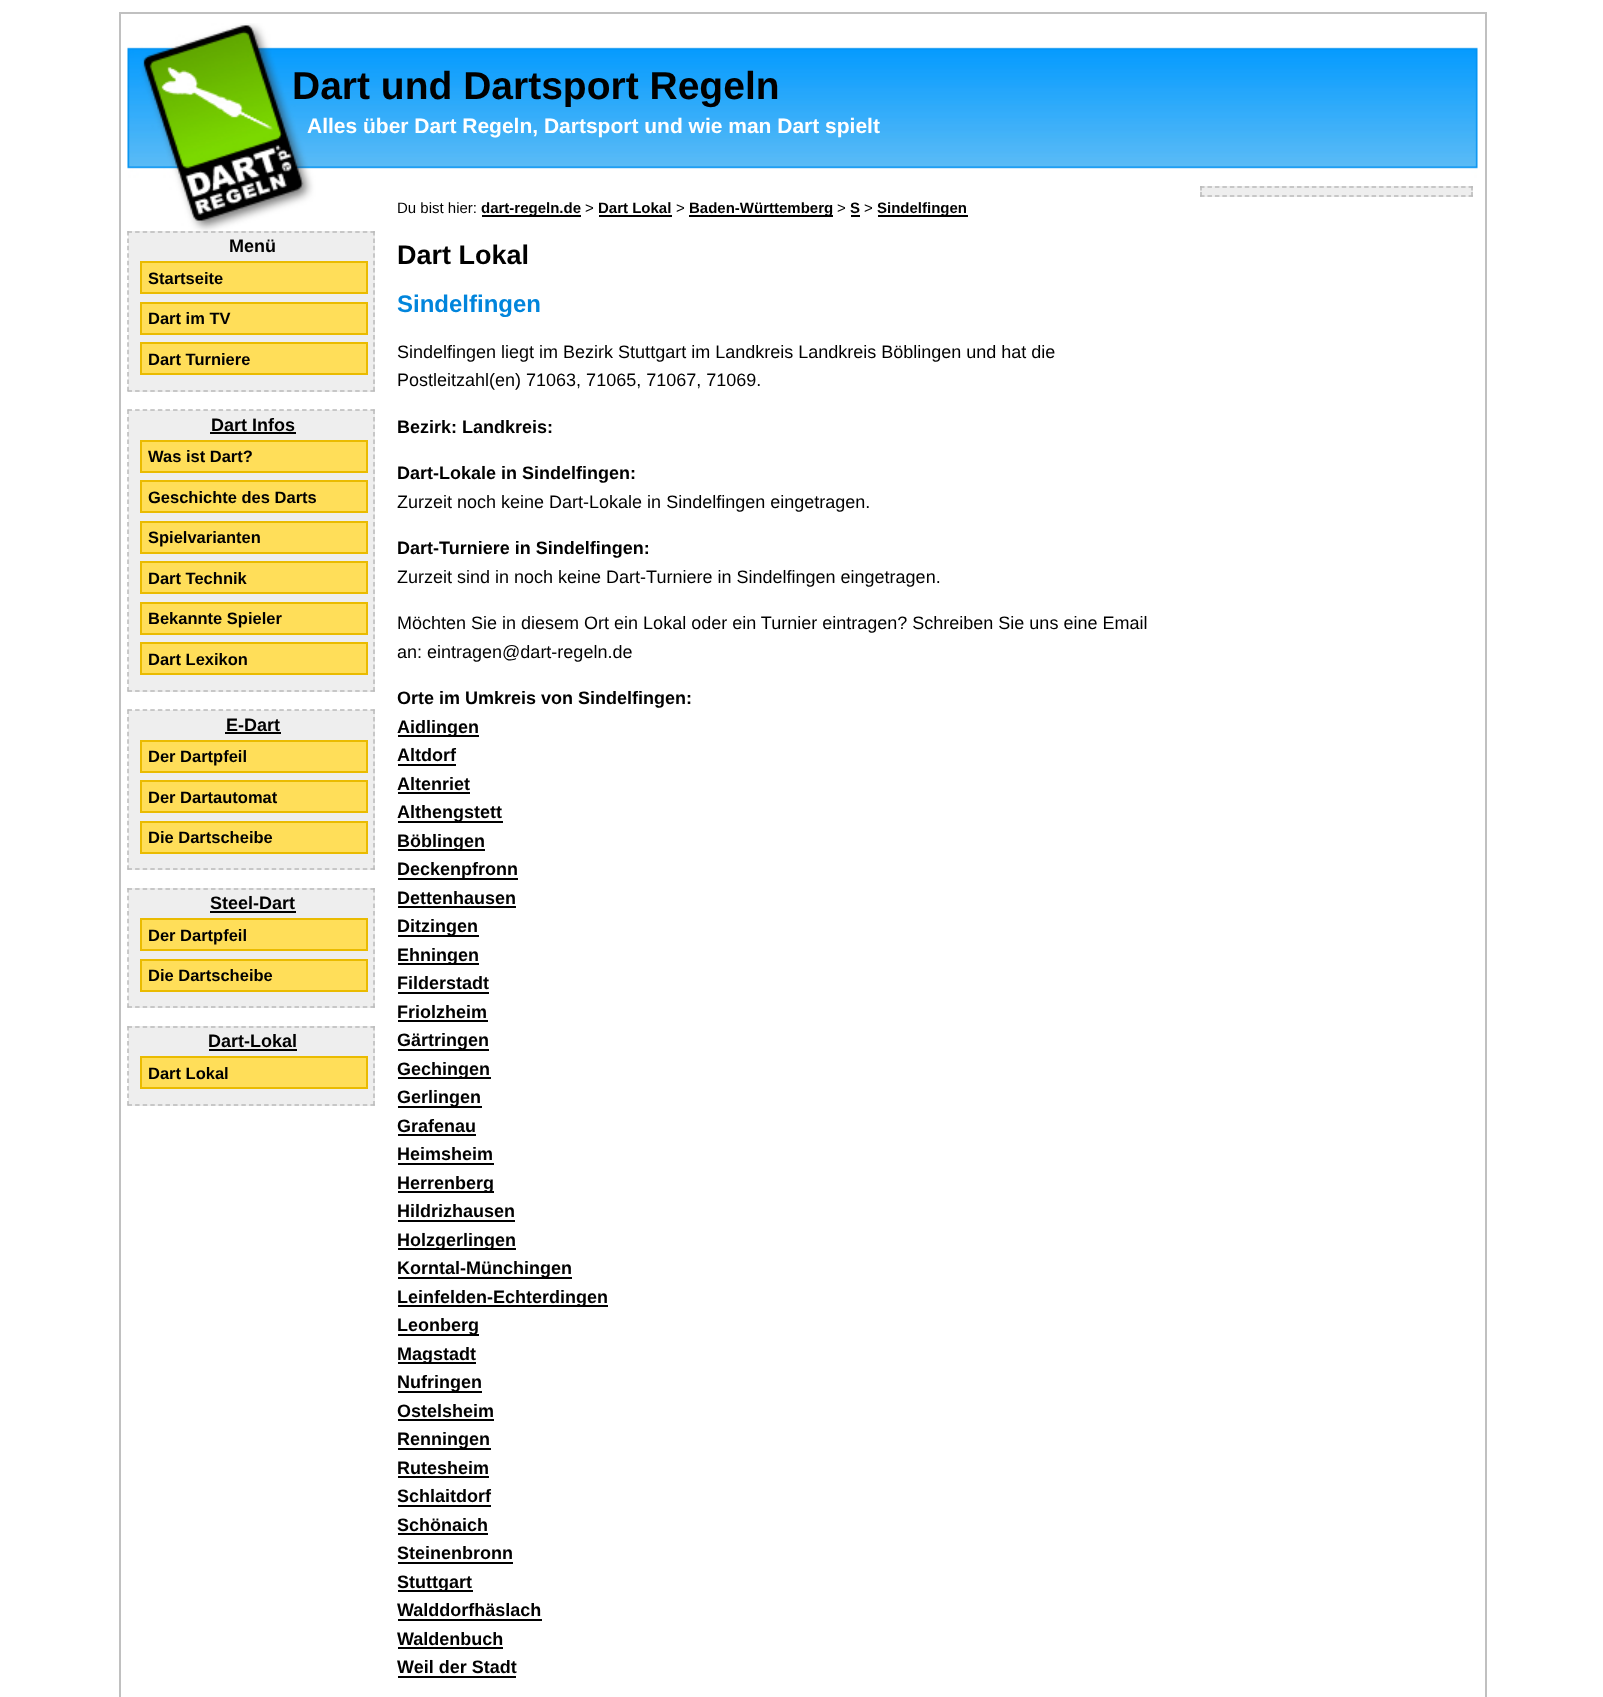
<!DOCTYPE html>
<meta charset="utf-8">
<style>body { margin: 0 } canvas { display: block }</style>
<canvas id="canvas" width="1603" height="1697"></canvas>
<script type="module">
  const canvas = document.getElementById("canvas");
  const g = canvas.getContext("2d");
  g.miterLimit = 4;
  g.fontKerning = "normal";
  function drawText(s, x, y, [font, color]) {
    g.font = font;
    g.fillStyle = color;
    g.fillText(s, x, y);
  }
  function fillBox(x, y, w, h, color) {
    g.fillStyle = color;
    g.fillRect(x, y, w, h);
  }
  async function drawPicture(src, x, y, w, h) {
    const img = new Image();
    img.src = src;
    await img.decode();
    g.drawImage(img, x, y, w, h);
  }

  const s1 = ["bold 39px Liberation Sans", "#000000"];
  const s2 = ["bold 21px Liberation Sans", "#FFFFFF"];
  const s3 = ["bold 18px Liberation Sans", "#000000"];
  const s4 = ["bold 16.5px Liberation Sans", "#000000"];
  const s5 = ["15px Liberation Sans", "#000000"];
  const s6 = ["bold 15px Liberation Sans", "#000000"];
  const s7 = ["bold 27px Liberation Sans", "#000000"];
  const s8 = ["bold 24px Liberation Sans", "#0185DC"];
  const s9 = ["18px Liberation Sans", "#000000"];

  fillBox(0, 0, 1603, 1697, "#FFFFFF");
  g.strokeStyle = "#C0C0C0";
  g.lineWidth = 2;
  g.strokeRect(120, 13, 1366, 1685);
  await drawPicture("pic1.png", 127, 23, 1351, 208);
  drawText("Dart und Dartsport Regeln", 292, 99, s1);
  drawText("Alles über Dart Regeln, Dartsport und wie man Dart spielt", 307, 133, s2);
  fillBox(1200, 186, 273, 11, "#EEEEEE");
  g.beginPath();
  g.moveTo(1200, 187);
  g.lineTo(1473, 187);
  g.strokeStyle = "#BBBBBB";
  g.lineWidth = 1.5;
  g.setLineDash([4.5, 2.96]);
  g.stroke();
  g.beginPath();
  g.moveTo(1472, 186);
  g.lineTo(1472, 190.5);
  g.moveTo(1472, 192);
  g.lineTo(1472, 196.5);
  g.setLineDash([]);
  g.stroke();
  g.beginPath();
  g.moveTo(1200, 196);
  g.lineTo(1473, 196);
  g.setLineDash([4.5, 2.96]);
  g.stroke();
  g.beginPath();
  g.moveTo(1201, 186);
  g.lineTo(1201, 190.5);
  g.moveTo(1201, 192);
  g.lineTo(1201, 196.5);
  g.setLineDash([]);
  g.stroke();
  fillBox(128, 231, 247, 161, "#EEEEEE");
  g.beginPath();
  g.moveTo(127.5, 232);
  g.lineTo(375, 232);
  g.setLineDash([4.5, 3.09]);
  g.stroke();
  g.beginPath();
  g.moveTo(374, 231);
  g.lineTo(374, 391.5);
  g.setLineDash([4.5, 2.92]);
  g.stroke();
  g.beginPath();
  g.moveTo(127.5, 391);
  g.lineTo(375, 391);
  g.setLineDash([4.5, 3.09]);
  g.stroke();
  g.beginPath();
  g.moveTo(128, 231);
  g.lineTo(128, 391.5);
  g.setLineDash([4.5, 2.92]);
  g.stroke();
  drawText("Menü", 229, 252, s3);
  g.fillStyle = "#FFDE59";
  g.beginPath();
  g.rect(141, 262, 226, 31);
  g.fill();
  g.strokeStyle = "#EABB00";
  g.lineWidth = 2;
  g.setLineDash([]);
  g.stroke();
  drawText("Startseite", 148, 284, s4);
  g.fillStyle = "#FFDE59";
  g.beginPath();
  g.rect(141, 303, 226, 31);
  g.fill();
  g.stroke();
  drawText("Dart im TV", 148, 324, s4);
  g.fillStyle = "#FFDE59";
  g.beginPath();
  g.rect(141, 343, 226, 31);
  g.fill();
  g.stroke();
  drawText("Dart Turniere", 148, 365, s4);
  fillBox(128, 410, 247, 282, "#EEEEEE");
  g.beginPath();
  g.moveTo(127.5, 410);
  g.lineTo(375, 410);
  g.strokeStyle = "#BBBBBB";
  g.lineWidth = 1.5;
  g.setLineDash([4.5, 3.09]);
  g.stroke();
  g.beginPath();
  g.moveTo(374, 409.5);
  g.lineTo(374, 691.5);
  g.setLineDash([4.5, 3]);
  g.stroke();
  g.beginPath();
  g.moveTo(127.5, 691);
  g.lineTo(375, 691);
  g.setLineDash([4.5, 3.09]);
  g.stroke();
  g.beginPath();
  g.moveTo(128, 409.5);
  g.lineTo(128, 691.5);
  g.setLineDash([4.5, 3]);
  g.stroke();
  drawText("Dart Infos", 211, 431, s3);
  fillBox(210, 432, 86, 2, "#000000");
  g.fillStyle = "#FFDE59";
  g.beginPath();
  g.rect(141, 441, 226, 31);
  g.fill();
  g.strokeStyle = "#EABB00";
  g.lineWidth = 2;
  g.setLineDash([]);
  g.stroke();
  drawText("Was ist Dart?", 148, 462, s4);
  g.fillStyle = "#FFDE59";
  g.beginPath();
  g.rect(141, 481, 226, 31);
  g.fill();
  g.stroke();
  drawText("Geschichte des Darts", 148, 503, s4);
  g.fillStyle = "#FFDE59";
  g.beginPath();
  g.rect(141, 522, 226, 31);
  g.fill();
  g.stroke();
  drawText("Spielvarianten", 148, 543, s4);
  g.fillStyle = "#FFDE59";
  g.beginPath();
  g.rect(141, 562, 226, 31);
  g.fill();
  g.stroke();
  drawText("Dart Technik", 148, 584, s4);
  g.fillStyle = "#FFDE59";
  g.beginPath();
  g.rect(141, 603, 226, 31);
  g.fill();
  g.stroke();
  drawText("Bekannte Spieler", 148, 624, s4);
  g.fillStyle = "#FFDE59";
  g.beginPath();
  g.rect(141, 643, 226, 31);
  g.fill();
  g.stroke();
  drawText("Dart Lexikon", 148, 665, s4);
  fillBox(128, 710, 247, 160, "#EEEEEE");
  g.beginPath();
  g.moveTo(127.5, 710);
  g.lineTo(375, 710);
  g.strokeStyle = "#BBBBBB";
  g.lineWidth = 1.5;
  g.setLineDash([4.5, 3.09]);
  g.stroke();
  g.beginPath();
  g.moveTo(374, 709.5);
  g.lineTo(374, 870);
  g.setLineDash([4.5, 2.92]);
  g.stroke();
  g.beginPath();
  g.moveTo(127.5, 869);
  g.lineTo(375, 869);
  g.setLineDash([4.5, 3.09]);
  g.stroke();
  g.beginPath();
  g.moveTo(128, 709.5);
  g.lineTo(128, 870);
  g.setLineDash([4.5, 2.92]);
  g.stroke();
  drawText("E-Dart", 226, 731, s3);
  fillBox(225, 732, 56, 2, "#000000");
  g.fillStyle = "#FFDE59";
  g.beginPath();
  g.rect(141, 741, 226, 31);
  g.fill();
  g.strokeStyle = "#EABB00";
  g.lineWidth = 2;
  g.setLineDash([]);
  g.stroke();
  drawText("Der Dartpfeil", 148, 762, s4);
  g.fillStyle = "#FFDE59";
  g.beginPath();
  g.rect(141, 781, 226, 31);
  g.fill();
  g.stroke();
  drawText("Der Dartautomat", 148, 803, s4);
  g.fillStyle = "#FFDE59";
  g.beginPath();
  g.rect(141, 822, 226, 31);
  g.fill();
  g.stroke();
  drawText("Die Dartscheibe", 148, 843, s4);
  fillBox(128, 888, 247, 120, "#EEEEEE");
  g.beginPath();
  g.moveTo(127.5, 889);
  g.lineTo(375, 889);
  g.strokeStyle = "#BBBBBB";
  g.lineWidth = 1.5;
  g.setLineDash([4.5, 3.09]);
  g.stroke();
  g.beginPath();
  g.moveTo(374, 888);
  g.lineTo(374, 1008);
  g.setLineDash([4.5, 3.19]);
  g.stroke();
  g.beginPath();
  g.moveTo(127.5, 1007);
  g.lineTo(375, 1007);
  g.setLineDash([4.5, 3.09]);
  g.stroke();
  g.beginPath();
  g.moveTo(128, 888);
  g.lineTo(128, 1008);
  g.setLineDash([4.5, 3.19]);
  g.stroke();
  drawText("Steel-Dart", 210, 909, s3);
  fillBox(210, 911, 86, 2, "#000000");
  g.fillStyle = "#FFDE59";
  g.beginPath();
  g.rect(141, 919, 226, 31);
  g.fill();
  g.strokeStyle = "#EABB00";
  g.lineWidth = 2;
  g.setLineDash([]);
  g.stroke();
  drawText("Der Dartpfeil", 148, 941, s4);
  g.fillStyle = "#FFDE59";
  g.beginPath();
  g.rect(141, 960, 226, 31);
  g.fill();
  g.stroke();
  drawText("Die Dartscheibe", 148, 981, s4);
  fillBox(128, 1026, 247, 80, "#EEEEEE");
  g.beginPath();
  g.moveTo(127.5, 1027);
  g.lineTo(375, 1027);
  g.strokeStyle = "#BBBBBB";
  g.lineWidth = 1.5;
  g.setLineDash([4.5, 3.09]);
  g.stroke();
  g.beginPath();
  g.moveTo(374, 1026);
  g.lineTo(374, 1105.5);
  g.setLineDash([4.5, 3]);
  g.stroke();
  g.beginPath();
  g.moveTo(127.5, 1105);
  g.lineTo(375, 1105);
  g.setLineDash([4.5, 3.09]);
  g.stroke();
  g.beginPath();
  g.moveTo(128, 1026);
  g.lineTo(128, 1105.5);
  g.setLineDash([4.5, 3]);
  g.stroke();
  drawText("Dart-Lokal", 208, 1047, s3);
  fillBox(209, 1049, 88, 2, "#000000");
  g.fillStyle = "#FFDE59";
  g.beginPath();
  g.rect(141, 1057, 226, 31);
  g.fill();
  g.strokeStyle = "#EABB00";
  g.lineWidth = 2;
  g.setLineDash([]);
  g.stroke();
  drawText("Dart Lokal", 148, 1079, s4);
  drawText("Du bist hier:", 397, 213, s5);
  fillBox(482, 215, 99, 2, "#000000");
  drawText("dart-regeln.de", 481, 213, s6);
  drawText(">", 585, 213, s5);
  drawText("Dart Lokal", 598, 213, s6);
  fillBox(599, 215, 73, 2, "#000000");
  drawText(">", 676, 213, s5);
  fillBox(689, 215, 144, 2, "#000000");
  drawText("Baden-Württemberg", 689, 213, s6);
  drawText(">", 837, 213, s5);
  drawText("S", 850, 213, s6);
  fillBox(851, 215, 9, 2, "#000000");
  drawText(">", 864, 213, s5);
  fillBox(878, 215, 90, 2, "#000000");
  drawText("Sindelfingen", 877, 213, s6);
  drawText("Dart Lokal", 397, 264, s7);
  drawText("Sindelfingen", 397, 312, s8);
  drawText("Sindelfingen liegt im Bezirk Stuttgart im Landkreis Landkreis Böblingen und hat die", 397, 358, s9);
  drawText("Postleitzahl(en) 71063, 71065, 71067, 71069.", 397, 386, s9);
  drawText("Bezirk: Landkreis:", 397, 433, s3);
  drawText("Dart-Lokale in Sindelfingen:", 397, 479, s3);
  drawText("Zurzeit noch keine Dart-Lokale in Sindelfingen eingetragen.", 397, 508, s9);
  drawText("Dart-Turniere in Sindelfingen:", 397, 554, s3);
  drawText("Zurzeit sind in noch keine Dart-Turniere in Sindelfingen eingetragen.", 397, 583, s9);
  drawText("Möchten Sie in diesem Ort ein Lokal oder ein Turnier eintragen? Schreiben Sie uns eine Email", 397, 629, s9);
  drawText("an: eintragen@dart-regeln.de", 397, 658, s9);
  drawText("Orte im Umkreis von Sindelfingen:", 397, 704, s3);
  fillBox(398, 735, 81, 2, "#000000");
  drawText("Aidlingen", 397, 733, s3);
  drawText("Altdorf", 397, 761, s3);
  fillBox(398, 764, 58, 2, "#000000");
  drawText("Altenriet", 397, 790, s3);
  fillBox(398, 792, 72, 2, "#000000");
  fillBox(398, 821, 105, 2, "#000000");
  drawText("Althengstett", 397, 818, s3);
  fillBox(398, 849, 87, 2, "#000000");
  drawText("Böblingen", 397, 847, s3);
  fillBox(398, 878, 120, 2, "#000000");
  drawText("Deckenpfronn", 397, 875, s3);
  drawText("Dettenhausen", 397, 904, s3);
  fillBox(398, 906, 118, 2, "#000000");
  fillBox(398, 935, 81, 2, "#000000");
  drawText("Ditzingen", 397, 932, s3);
  fillBox(398, 963, 81, 2, "#000000");
  drawText("Ehningen", 397, 961, s3);
  drawText("Filderstadt", 397, 989, s3);
  fillBox(398, 992, 91, 2, "#000000");
  drawText("Friolzheim", 397, 1018, s3);
  fillBox(398, 1020, 90, 2, "#000000");
  fillBox(398, 1049, 91, 2, "#000000");
  drawText("Gärtringen", 397, 1046, s3);
  fillBox(398, 1077, 93, 2, "#000000");
  drawText("Gechingen", 397, 1075, s3);
  fillBox(398, 1106, 84, 2, "#000000");
  drawText("Gerlingen", 397, 1103, s3);
  drawText("Grafenau", 397, 1132, s3);
  fillBox(398, 1134, 78, 2, "#000000");
  drawText("Heimsheim", 397, 1160, s3);
  fillBox(398, 1163, 96, 2, "#000000");
  fillBox(398, 1191, 96, 2, "#000000");
  drawText("Herrenberg", 397, 1189, s3);
  drawText("Hildrizhausen", 397, 1217, s3);
  fillBox(398, 1220, 117, 2, "#000000");
  fillBox(398, 1248, 118, 2, "#000000");
  drawText("Holzgerlingen", 397, 1246, s3);
  fillBox(398, 1277, 174, 2, "#000000");
  drawText("Korntal-Münchingen", 397, 1274, s3);
  fillBox(398, 1305, 210, 2, "#000000");
  drawText("Leinfelden-Echterdingen", 397, 1303, s3);
  fillBox(398, 1334, 81, 2, "#000000");
  drawText("Leonberg", 397, 1331, s3);
  fillBox(398, 1362, 78, 2, "#000000");
  drawText("Magstadt", 397, 1360, s3);
  fillBox(398, 1391, 84, 2, "#000000");
  drawText("Nufringen", 397, 1388, s3);
  drawText("Ostelsheim", 397, 1417, s3);
  fillBox(398, 1419, 96, 2, "#000000");
  fillBox(398, 1448, 93, 2, "#000000");
  drawText("Renningen", 397, 1445, s3);
  drawText("Rutesheim", 397, 1474, s3);
  fillBox(398, 1476, 91, 2, "#000000");
  drawText("Schlaitdorf", 397, 1502, s3);
  fillBox(398, 1505, 93, 2, "#000000");
  drawText("Schönaich", 397, 1531, s3);
  fillBox(398, 1533, 90, 2, "#000000");
  drawText("Steinenbronn", 397, 1559, s3);
  fillBox(398, 1562, 115, 2, "#000000");
  fillBox(398, 1590, 75, 2, "#000000");
  drawText("Stuttgart", 397, 1588, s3);
  drawText("Walddorfhäslach", 397, 1616, s3);
  fillBox(398, 1619, 144, 2, "#000000");
  drawText("Waldenbuch", 397, 1645, s3);
  fillBox(398, 1647, 105, 2, "#000000");
  drawText("Weil der Stadt", 397, 1673, s3);
  fillBox(398, 1676, 118, 2, "#000000");
</script>
